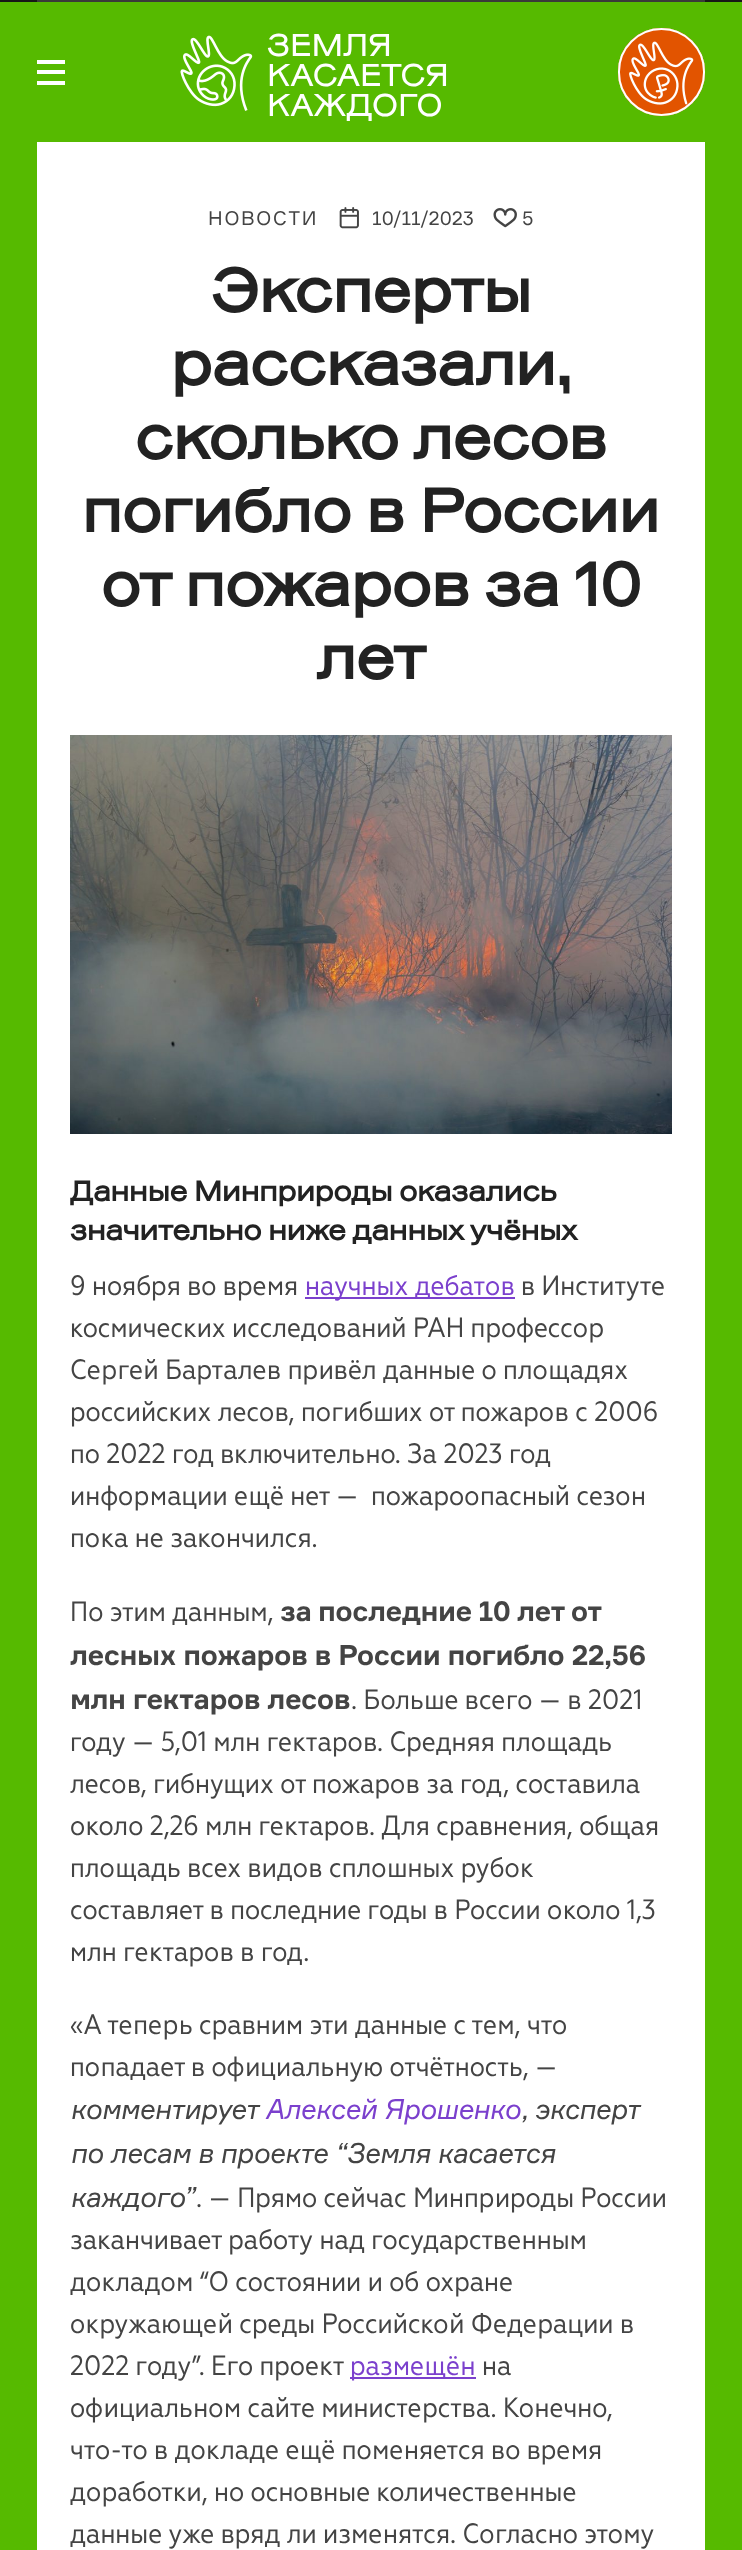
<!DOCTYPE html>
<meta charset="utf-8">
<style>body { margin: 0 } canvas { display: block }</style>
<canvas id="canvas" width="742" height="2550"></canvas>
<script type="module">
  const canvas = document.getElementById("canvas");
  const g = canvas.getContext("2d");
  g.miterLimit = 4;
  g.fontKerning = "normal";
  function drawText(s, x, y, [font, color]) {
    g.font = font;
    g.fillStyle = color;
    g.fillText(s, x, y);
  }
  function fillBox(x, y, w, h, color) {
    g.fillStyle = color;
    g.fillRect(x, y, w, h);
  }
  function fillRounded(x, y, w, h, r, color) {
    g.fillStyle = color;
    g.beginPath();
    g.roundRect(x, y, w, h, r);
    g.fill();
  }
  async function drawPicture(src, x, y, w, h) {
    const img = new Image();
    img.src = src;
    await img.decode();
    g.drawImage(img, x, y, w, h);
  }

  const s1 = ["31.5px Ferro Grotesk", "#FFFFFF"];
  const s2 = ["19.25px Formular", "#444444"];
  const s3 = ["bold 61.25px Ferro Grotesk", "#222222"];
  const s4 = ["bold 28px Ferro Grotesk", "#222222"];
  const s5 = ["28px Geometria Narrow", "#444444"];
  const s6 = ["28px Geometria Narrow", "#7B40CD"];
  const s7 = ["bold 28px Formular", "#444444"];
  const s8 = ["italic 28px Formular", "#444444"];
  const s9 = ["italic 28px Formular", "#7B40CD"];

  fillBox(0, 0, 742, 2550, "#56BA00");
  fillBox(0, 0, 742, 2, "#171717");
  fillBox(37, 0, 668, 2, "#3A3A3A");
  fillBox(37, 70, 28, 4, "#FFFFFF");
  fillBox(37, 60, 28, 4, "#FFFFFF");
  fillBox(37, 81, 28, 4, "#FFFFFF");
  g.beginPath();
  g.roundRect(619, 29, 85, 86, 42.5);
  g.strokeStyle = "#FFFFFF";
  g.lineWidth = 2;
  g.stroke();
  fillRounded(618, 28, 87, 88, 43.5, "#E25400");
  await drawPicture("pic1.png", 629, 41, 65, 64);
  g.beginPath();
  g.roundRect(619, 29, 85, 86, 42.5);
  g.stroke();
  await drawPicture("pic2.png", 180, 35, 73, 76);
  drawText("ЗЕМЛЯ", 267, 56, s1);
  drawText("КАСАЕТСЯ", 267, 86, s1);
  drawText("КАЖДОГО", 267, 116, s1);
  fillBox(37, 142, 668, 2408, "#FFFFFF");
  g.letterSpacing = "1.75px";
  drawText("НОВОСТИ", 208, 225, s2);
  await drawPicture("pic3.png", 339, 207, 20, 22);
  g.letterSpacing = "0px";
  drawText("10/11/2023", 372, 225, s2);
  await drawPicture("pic4.png", 493, 208, 24, 20);
  drawText("5", 522, 225, s2);
  drawText("Эксперты", 211, 312, s3);
  drawText("рассказали,", 171, 385, s3);
  drawText("сколько лесов", 135, 459, s3);
  drawText("погибло в России", 82, 532, s3);
  drawText("от пожаров за 10", 101, 606, s3);
  drawText("лет", 316, 679, s3);
  await drawPicture("pic5.png", 70, 735, 602, 399);
  drawText("Данные Минприроды оказались", 70, 1201, s4);
  drawText("значительно ниже данных учёных", 70, 1240, s4);
  drawText("9 ноября во время", 70, 1295, s5);
  fillBox(305, 1297, 210, 2, "#7B40CD");
  drawText("научных дебатов", 305, 1295, s6);
  drawText("в Институте", 521, 1295, s5);
  drawText("космических исследований РАН профессор", 70, 1337, s5);
  drawText("Сергей Барталев привёл данные о площадях", 70, 1379, s5);
  drawText("российских лесов, погибших от пожаров с 2006", 70, 1421, s5);
  drawText("по 2022 год включительно. За 2023 год", 70, 1463, s5);
  drawText("информации ещё нет —  пожароопасный сезон", 70, 1505, s5);
  drawText("пока не закончился.", 70, 1547, s5);
  drawText("По этим данным,", 70, 1621, s5);
  g.letterSpacing = "-0.55px";
  g.wordSpacing = "-0.5px";
  drawText("за последние 10 лет от", 280, 1621, s7);
  g.wordSpacing = "0px";
  drawText("лесных пожаров в России погибло 22,56", 70, 1665, s7);
  drawText("млн гектаров лесов", 70, 1709, s7);
  g.letterSpacing = "0px";
  drawText(". Больше всего — в 2021", 351, 1709, s5);
  drawText("году — 5,01 млн гектаров. Средняя площадь", 70, 1751, s5);
  drawText("лесов, гибнущих от пожаров за год, составила", 70, 1793, s5);
  drawText("около 2,26 млн гектаров. Для сравнения, общая", 70, 1835, s5);
  drawText("площадь всех видов сплошных рубок", 70, 1877, s5);
  drawText("составляет в последние годы в России около 1,3", 70, 1919, s5);
  drawText("млн гектаров в год.", 70, 1961, s5);
  drawText("«А теперь сравним эти данные с тем, что", 70, 2034, s5);
  drawText("попадает в официальную отчётность, —", 70, 2076, s5);
  g.letterSpacing = "-0.55px";
  drawText("комментирует", 70, 2119, s8);
  drawText("Алексей Ярошенко", 265, 2119, s9);
  g.wordSpacing = "-1px";
  drawText(", эксперт", 521, 2119, s8);
  g.wordSpacing = "0px";
  drawText("по лесам в проекте “Земля касается", 70, 2163, s8);
  drawText("каждого”", 70, 2207, s8);
  g.letterSpacing = "0px";
  drawText(". — Прямо сейчас Минприроды России", 196, 2207, s5);
  drawText("заканчивает работу над государственным", 70, 2249, s5);
  drawText("докладом “О состоянии и об охране", 70, 2291, s5);
  drawText("окружающей среды Российской Федерации в", 70, 2333, s5);
  drawText("2022 году”. Его проект", 70, 2375, s5);
  fillBox(350, 2377, 126, 2, "#7B40CD");
  drawText("размещён", 350, 2375, s6);
  drawText("на", 482, 2375, s5);
  drawText("официальном сайте министерства. Конечно,", 70, 2417, s5);
  drawText("что-то в докладе ещё поменяется во время", 70, 2459, s5);
  drawText("доработки, но основные количественные", 70, 2501, s5);
  drawText("данные уже вряд ли изменятся. Согласно этому", 70, 2543, s5);
</script>
